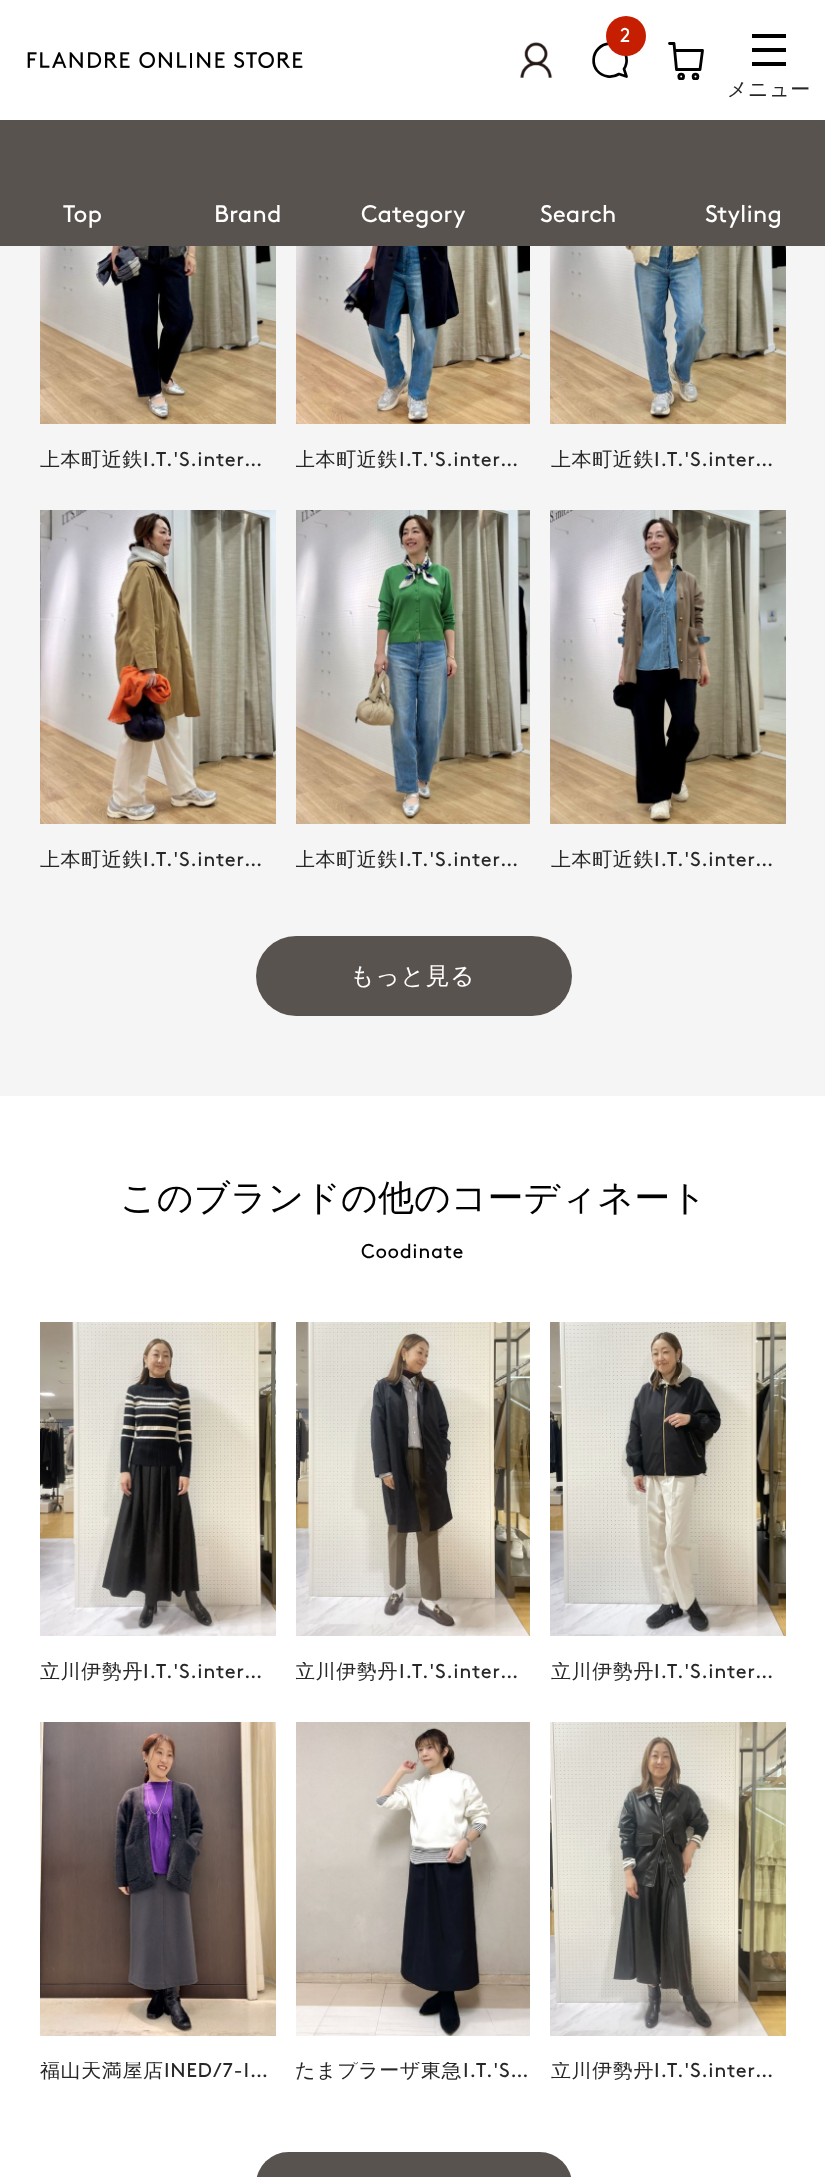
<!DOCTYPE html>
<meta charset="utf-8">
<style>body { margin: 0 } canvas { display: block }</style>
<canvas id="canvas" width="825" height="2177"></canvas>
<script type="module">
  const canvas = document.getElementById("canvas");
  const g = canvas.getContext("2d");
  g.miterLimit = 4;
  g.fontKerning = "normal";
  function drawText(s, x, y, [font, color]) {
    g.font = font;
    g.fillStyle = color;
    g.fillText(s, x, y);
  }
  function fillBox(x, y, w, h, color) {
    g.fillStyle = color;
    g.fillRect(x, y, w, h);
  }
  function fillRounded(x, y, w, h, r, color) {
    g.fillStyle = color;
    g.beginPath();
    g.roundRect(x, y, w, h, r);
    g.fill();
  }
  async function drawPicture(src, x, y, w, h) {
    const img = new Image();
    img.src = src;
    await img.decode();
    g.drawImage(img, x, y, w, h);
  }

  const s1 = ["20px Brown", "#FFFFFF"];
  const s2 = ["500 20px WenQuanYi Zen Hei", "#272727"];
  const s3 = ["24px Brown", "#FFFFFF"];
  const s4 = ["20px Brown", "#272727"];
  const s5 = ["500 24px WenQuanYi Zen Hei", "#FFFFFF"];
  const s6 = ["500 36px WenQuanYi Zen Hei", "#000000"];
  const s7 = ["20px Brown", "#000000"];

  fillBox(0, 0, 825, 2177, "#FFFFFF");
  await drawPicture("pic1.png", 27, 52, 276, 16);
  g.beginPath();
  g.moveTo(626.5, 76.5);
  g.lineTo(624, 69);
  g.bezierCurveTo(628.5, 62, 627, 52.5, 620.5, 47);
  g.bezierCurveTo(613.5, 42, 604.5, 42.5, 598.5, 48.5);
  g.bezierCurveTo(592.5, 54.5, 592, 64, 597, 70.5);
  g.bezierCurveTo(602.5, 77, 612, 78.5, 619, 74);
  g.closePath();
  g.strokeStyle = "#000000";
  g.lineWidth = 2.7;
  g.lineCap = "round";
  g.lineJoin = "round";
  g.stroke();
  g.fillStyle = "#C61E00";
  g.beginPath();
  g.arc(626, 36, 20, 0, Math.PI * 2);
  g.fill();
  g.letterSpacing = "0.6px";
  drawText("2", 620, 42, s1);
  await drawPicture("pic2.png", 520, 42, 33, 36);
  g.beginPath();
  g.moveTo(675, 50.5);
  g.lineTo(702.5, 50.5);
  g.lineTo(700, 69.5);
  g.lineTo(676.5, 69.5);
  g.lineTo(674, 43.5);
  g.lineTo(669.5, 43.5);
  g.lineWidth = 2.8;
  g.stroke();
  g.save();
  g.beginPath();
  g.rect(668, 42, 36, 38);
  g.clip();
  g.beginPath();
  g.arc(681.2, 76.6, 2.4, 0, Math.PI * 2);
  g.stroke();
  g.beginPath();
  g.arc(695.5, 76.6, 2.4, 0, Math.PI * 2);
  g.stroke();
  g.restore();
  fillBox(752, 34, 34, 4, "#000000");
  fillBox(752, 48, 34, 4, "#000000");
  fillBox(752, 62, 34, 4, "#000000");
  drawText("メニュー", 727, 96, s2);
  fillBox(0, 120, 825, 126, "#59534F");
  g.letterSpacing = "0px";
  drawText("Top", 63, 222, s3);
  drawText("Brand", 214, 222, s3);
  drawText("Category", 361, 222, s3);
  drawText("Search", 540, 222, s3);
  drawText("Styling", 705, 222, s3);
  fillBox(0, 246, 825, 850, "#F5F5F5");
  await drawPicture("pic3.png", 40, 246, 236, 178);
  g.save();
  g.beginPath();
  g.rect(40, 450, 236, 20);
  g.clip();
  g.letterSpacing = "0.6px";
  drawText("上本町近鉄", 40, 466, s2);
  g.restore();
  g.letterSpacing = "0.6px";
  drawText("I.T.'S.inter…", 143, 466, s4);
  await drawPicture("pic4.png", 296, 246, 234, 178);
  g.save();
  g.beginPath();
  g.rect(296, 450, 234, 20);
  g.clip();
  drawText("上本町近鉄", 295, 466, s2);
  g.restore();
  drawText("I.T.'S.inter…", 399, 466, s4);
  await drawPicture("pic5.png", 550, 246, 236, 178);
  g.save();
  g.beginPath();
  g.rect(550, 450, 236, 20);
  g.clip();
  drawText("上本町近鉄", 551, 466, s2);
  g.restore();
  drawText("I.T.'S.inter…", 654, 466, s4);
  await drawPicture("pic6.png", 40, 510, 236, 314);
  g.save();
  g.beginPath();
  g.rect(40, 850, 236, 20);
  g.clip();
  drawText("上本町近鉄", 40, 866, s2);
  g.restore();
  drawText("I.T.'S.inter…", 143, 866, s4);
  await drawPicture("pic7.png", 296, 510, 234, 314);
  g.save();
  g.beginPath();
  g.rect(296, 850, 234, 20);
  g.clip();
  drawText("上本町近鉄", 295, 866, s2);
  g.restore();
  drawText("I.T.'S.inter…", 399, 866, s4);
  await drawPicture("pic8.png", 550, 510, 236, 314);
  g.save();
  g.beginPath();
  g.rect(550, 850, 236, 20);
  g.clip();
  drawText("上本町近鉄", 551, 866, s2);
  g.restore();
  drawText("I.T.'S.inter…", 654, 866, s4);
  fillRounded(256, 936, 316, 80, 40, "#59534F");
  drawText("もっと見る", 350, 984, s5);
  g.letterSpacing = "0px";
  drawText("このブランドの他のコーディネート", 120, 1210, s6);
  g.letterSpacing = "0.6px";
  drawText("Coodinate", 361, 1258, s7);
  await drawPicture("pic9.png", 40, 1322, 236, 314);
  g.save();
  g.beginPath();
  g.rect(40, 1662, 236, 20);
  g.clip();
  drawText("立川伊勢丹", 40, 1678, s2);
  g.restore();
  drawText("I.T.'S.inter…", 143, 1678, s4);
  await drawPicture("pic10.png", 296, 1322, 234, 314);
  g.save();
  g.beginPath();
  g.rect(296, 1662, 234, 20);
  g.clip();
  drawText("立川伊勢丹", 295, 1678, s2);
  g.restore();
  drawText("I.T.'S.inter…", 399, 1678, s4);
  await drawPicture("pic11.png", 550, 1322, 236, 314);
  g.save();
  g.beginPath();
  g.rect(550, 1662, 236, 20);
  g.clip();
  drawText("立川伊勢丹", 551, 1678, s2);
  g.restore();
  drawText("I.T.'S.inter…", 654, 1678, s4);
  await drawPicture("pic12.png", 40, 1722, 236, 314);
  g.save();
  g.beginPath();
  g.rect(40, 2062, 236, 20);
  g.clip();
  drawText("福山天満屋店", 40, 2077, s2);
  g.restore();
  drawText("INED/7-I…", 164, 2077, s4);
  await drawPicture("pic13.png", 296, 1722, 234, 314);
  g.save();
  g.beginPath();
  g.rect(296, 2062, 234, 20);
  g.clip();
  drawText("たまプラーザ東急", 295, 2077, s2);
  g.restore();
  drawText("I.T.'S…", 463, 2077, s4);
  await drawPicture("pic14.png", 550, 1722, 236, 314);
  g.save();
  g.beginPath();
  g.rect(550, 2062, 236, 20);
  g.clip();
  drawText("立川伊勢丹", 551, 2077, s2);
  g.restore();
  drawText("I.T.'S.inter…", 654, 2077, s4);
  fillRounded(256, 2152, 316, 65, 40, "#59534F");
</script>
